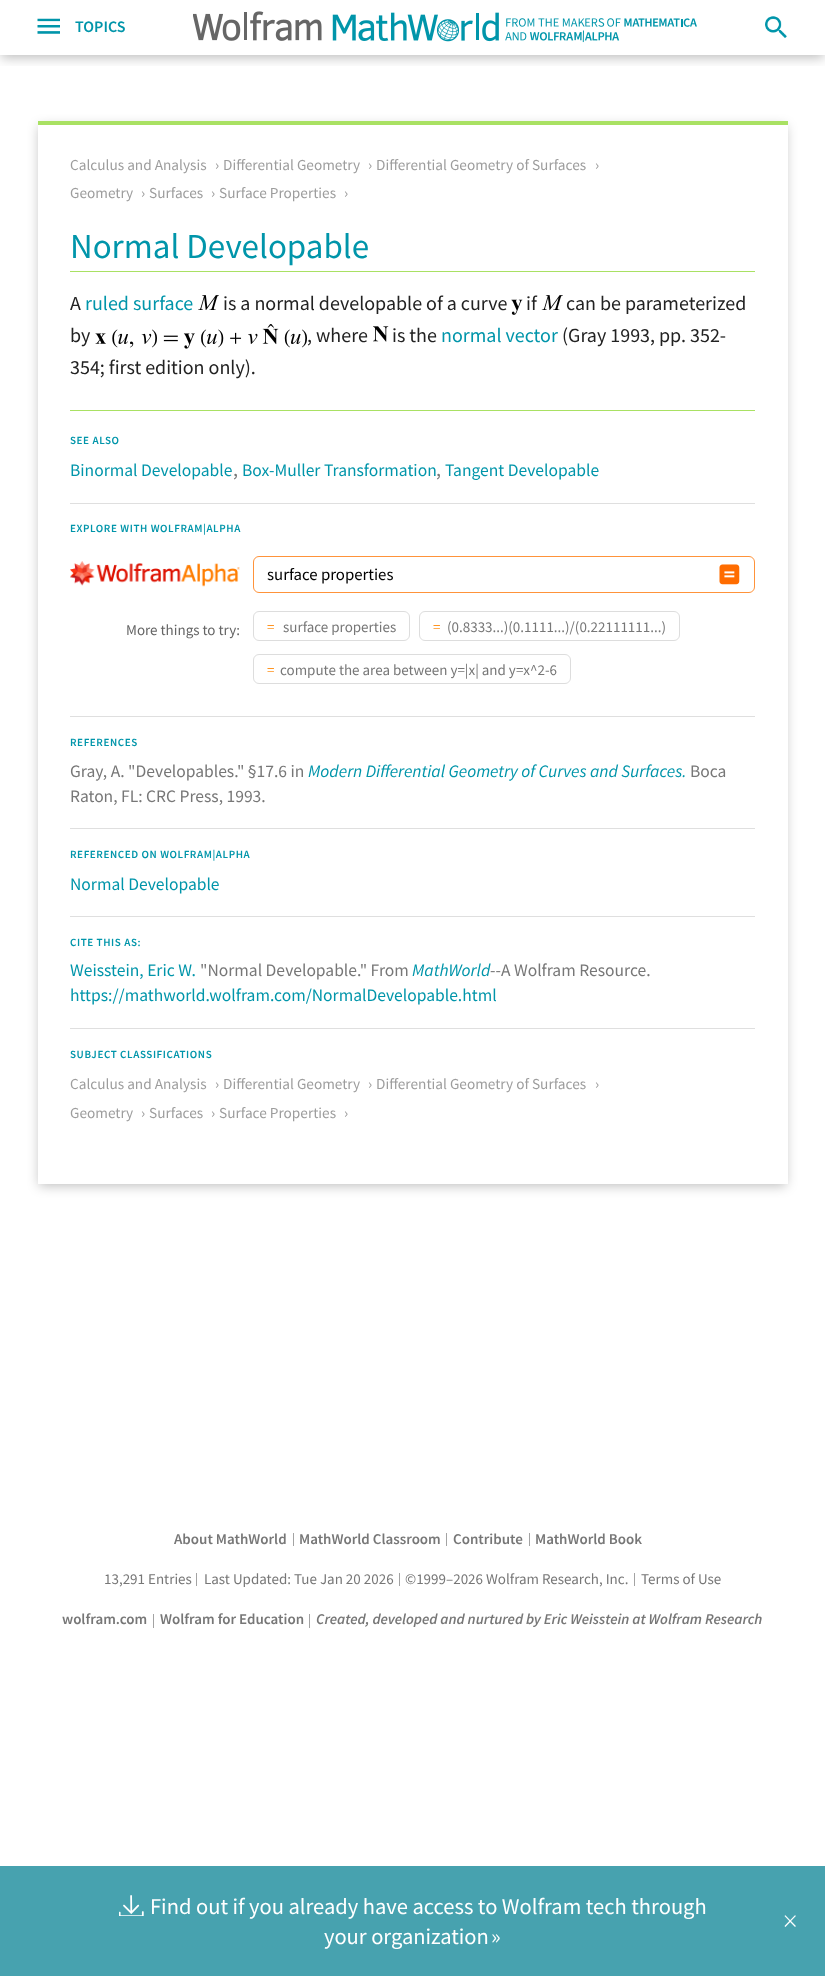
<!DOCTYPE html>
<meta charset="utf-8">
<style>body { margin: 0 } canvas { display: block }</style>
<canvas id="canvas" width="825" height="1976"></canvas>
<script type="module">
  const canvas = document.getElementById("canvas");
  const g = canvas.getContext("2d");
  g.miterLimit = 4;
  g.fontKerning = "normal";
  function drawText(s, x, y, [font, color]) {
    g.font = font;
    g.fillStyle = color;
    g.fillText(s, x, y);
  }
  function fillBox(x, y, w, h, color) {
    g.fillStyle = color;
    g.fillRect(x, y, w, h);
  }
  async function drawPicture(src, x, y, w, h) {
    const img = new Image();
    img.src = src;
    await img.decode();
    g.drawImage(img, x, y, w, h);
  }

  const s1 = ["600 16px Source Sans Pro", "#0095AA"];
  const s2 = ["15.25px Source Sans Pro", "#9D9D9D"];
  const s3 = ["35px Source Sans Pro", "#0095AA"];
  const s4 = ["20px Source Sans Pro", "#222222"];
  const s5 = ["20px Source Sans Pro", "#0095AA"];
  const s6 = ["600 11px Source Sans Pro", "#0095AA"];
  const s7 = ["17.5px Source Sans Pro", "#0095AA"];
  const s8 = ["20px Source Sans Pro", "#777777"];
  const s9 = ["16.75px Source Sans Pro", "#000000"];
  const s10 = ["15px Source Sans Pro", "#656565"];
  const s11 = ["15px Source Sans Pro", "#FF9522"];
  const s12 = ["15px Source Sans Pro", "#777777"];
  const s13 = ["17.5px Source Sans Pro", "#777777"];
  const s14 = ["italic 17.5px Source Sans Pro", "#0095AA"];
  const s15 = ["600 15px Source Sans Pro", "#777777"];
  const s16 = ["italic 600 15px Source Sans Pro", "#777777"];
  const s17 = ["22.5px Source Sans Pro", "#FFFFFF"];
  const s18 = ["300 30px Source Sans Pro", "#FFFFFF"];

  fillBox(0, 0, 825, 1976, "#FFFFFF");
  g.save();
  g.beginPath();
  g.rect(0, 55, 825, 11);
  g.clip();
  g.fillStyle = "rgba(0, 0, 0, 0.25)";
  g.filter = "blur(6px)";
  g.beginPath();
  g.rect(1, 5, 823, 53);
  g.fill();
  g.filter = "none";
  g.restore();
  await drawPicture("pic1.png", 37, 18, 23, 16);
  drawText("TOPICS", 75, 32, s1);
  await drawPicture("pic2.png", 193, 11, 504, 32);
  await drawPicture("pic3.png", 765, 16, 22, 22);
  g.save();
  g.beginPath();
  g.moveTo(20, 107);
  g.lineTo(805, 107);
  g.lineTo(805, 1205);
  g.lineTo(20, 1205);
  g.closePath();
  g.moveTo(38, 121);
  g.lineTo(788, 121);
  g.lineTo(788, 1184);
  g.lineTo(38, 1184);
  g.closePath();
  g.clip("evenodd");
  g.fillStyle = "rgba(0, 0, 0, 0.25)";
  g.filter = "blur(6px)";
  g.beginPath();
  g.rect(39, 126, 747, 1060);
  g.fill();
  g.filter = "none";
  g.restore();
  fillBox(38, 121, 750, 4, "#A9E163");
  drawText("Calculus and Analysis", 70, 170, s2);
  drawText("›", 215, 170, s2);
  drawText("Differential Geometry", 223, 170, s2);
  drawText("›", 368, 170, s2);
  drawText("Differential Geometry of Surfaces", 376, 170, s2);
  drawText("›", 595, 170, s2);
  drawText("Geometry", 70, 198, s2);
  drawText("›", 141, 198, s2);
  drawText("Surfaces", 149, 198, s2);
  drawText("›", 211, 198, s2);
  drawText("Surface Properties", 219, 198, s2);
  drawText("›", 344, 198, s2);
  drawText("Normal Developable", 70, 258, s3);
  fillBox(70, 271, 685, 1, "#A9E163");
  drawText("A", 70, 310, s4);
  drawText("ruled surface", 85, 310, s5);
  await drawPicture("pic4.png", 198, 295, 21, 15);
  drawText("is a normal developable of a curve", 223, 310, s4);
  await drawPicture("pic5.png", 511, 299, 12, 16);
  drawText("if", 526, 310, s4);
  await drawPicture("pic6.png", 541, 295, 22, 15);
  drawText("can be parameterized", 566, 310, s4);
  drawText("by", 70, 342, s4);
  await drawPicture("pic7.png", 95, 324, 212, 25);
  drawText(", where", 307, 342, s4);
  await drawPicture("pic8.png", 373, 326, 16, 16);
  drawText("is the", 392, 342, s4);
  drawText("normal vector", 441, 342, s5);
  drawText("(Gray 1993, pp. 352-", 562, 342, s4);
  drawText("354; first edition only).", 70, 374, s4);
  fillBox(70, 410, 685, 1, "#A9E163");
  g.letterSpacing = "0.6px";
  drawText("SEE ALSO", 70, 444, s6);
  g.letterSpacing = "0px";
  drawText("Binormal Developable", 70, 476, s7);
  drawText(",", 233, 476, s8);
  drawText("Box-Muller Transformation", 242, 476, s7);
  drawText(",", 436, 476, s8);
  drawText("Tangent Developable", 445, 476, s7);
  fillBox(70, 503, 685, 1, "#DFDFDF");
  g.letterSpacing = "0.6px";
  drawText("EXPLORE WITH WOLFRAM|ALPHA", 70, 532, s6);
  await drawPicture("pic9.png", 70, 561, 170, 26);
  g.beginPath();
  g.roundRect(253.5, 556.5, 501, 36, 5.5);
  g.strokeStyle = "#FF933A";
  g.stroke();
  g.letterSpacing = "0px";
  drawText("surface properties", 267, 580, s9);
  await drawPicture("pic10.png", 719, 564, 21, 21);
  drawText("More things to try:", 126, 635, s10);
  g.beginPath();
  g.roundRect(253.5, 611.5, 156, 29, 5.5);
  g.strokeStyle = "#DDDDDD";
  g.stroke();
  drawText("=", 267, 632, s11);
  drawText("surface properties", 283, 632, s12);
  g.beginPath();
  g.roundRect(419.5, 611.5, 260, 29, 5.5);
  g.stroke();
  drawText("=", 433, 632, s11);
  drawText("(0.8333...)(0.1111...)/(0.22111111...)", 447, 632, s12);
  g.beginPath();
  g.roundRect(253.5, 654.5, 317, 29, 5.5);
  g.stroke();
  drawText("=", 267, 675, s11);
  drawText("compute the area between y=|x| and y=x^2-6", 280, 675, s12);
  fillBox(70, 716, 685, 1, "#DFDFDF");
  g.letterSpacing = "0.6px";
  drawText("REFERENCES", 70, 746, s6);
  g.letterSpacing = "0px";
  drawText("Gray, A. \"Developables.\" §17.6 in", 70, 777, s13);
  drawText("Modern Differential Geometry of Curves and Surfaces.", 308, 777, s14);
  drawText("Boca", 690, 777, s13);
  drawText("Raton, FL: CRC Press, 1993.", 70, 802, s13);
  fillBox(70, 828, 685, 1, "#DFDFDF");
  g.letterSpacing = "0.6px";
  drawText("REFERENCED ON WOLFRAM|ALPHA", 70, 858, s6);
  g.letterSpacing = "0px";
  drawText("Normal Developable", 70, 890, s7);
  fillBox(70, 916, 685, 1, "#DFDFDF");
  g.letterSpacing = "0.6px";
  drawText("CITE THIS AS:", 70, 946, s6);
  g.letterSpacing = "0px";
  drawText("Weisstein, Eric W.", 70, 976, s7);
  drawText("\"Normal Developable.\" From", 200, 976, s13);
  drawText("MathWorld", 412, 976, s14);
  drawText("--A Wolfram Resource.", 490, 976, s13);
  drawText("https://mathworld.wolfram.com/NormalDevelopable.html", 70, 1001, s7);
  fillBox(70, 1028, 685, 1, "#DFDFDF");
  g.letterSpacing = "0.6px";
  drawText("SUBJECT CLASSIFICATIONS", 70, 1058, s6);
  g.letterSpacing = "0px";
  drawText("Calculus and Analysis", 70, 1089, s2);
  drawText("›", 215, 1089, s2);
  drawText("Differential Geometry", 223, 1089, s2);
  drawText("›", 368, 1089, s2);
  drawText("Differential Geometry of Surfaces", 376, 1089, s2);
  drawText("›", 595, 1089, s2);
  drawText("Geometry", 70, 1118, s2);
  drawText("›", 141, 1118, s2);
  drawText("Surfaces", 149, 1118, s2);
  drawText("›", 211, 1118, s2);
  drawText("Surface Properties", 219, 1118, s2);
  drawText("›", 344, 1118, s2);
  drawText("About MathWorld", 174, 1544, s15);
  fillBox(293, 1533, 1, 13, "#A3A3A3");
  drawText("MathWorld Classroom", 299, 1544, s15);
  fillBox(446, 1533, 1, 13, "#A3A3A3");
  drawText("Contribute", 453, 1544, s15);
  fillBox(529, 1533, 1, 13, "#A3A3A3");
  drawText("MathWorld Book", 535, 1544, s15);
  drawText("13,291 Entries", 104, 1584, s12);
  fillBox(196, 1573, 1, 13, "#A3A3A3");
  drawText("Last Updated: Tue Jan 20 2026", 204, 1584, s12);
  fillBox(399, 1573, 1, 13, "#A3A3A3");
  drawText("©1999–2026 Wolfram Research, Inc.", 405, 1584, s12);
  fillBox(634, 1573, 1, 13, "#A3A3A3");
  drawText("Terms of Use", 641, 1584, s12);
  drawText("wolfram.com", 62, 1624, s15);
  fillBox(153, 1614, 1, 14, "#A3A3A3");
  drawText("Wolfram for Education", 160, 1624, s15);
  fillBox(309, 1614, 1, 14, "#A3A3A3");
  drawText("Created, developed and nurtured by Eric Weisstein at Wolfram Research", 316, 1624, s16);
  fillBox(0, 1866, 825, 110, "#47A2AF");
  await drawPicture("pic11.png", 119, 1895, 25, 21);
  drawText("Find out if you already have access to Wolfram tech through", 150, 1914, s17);
  drawText("your organization", 324, 1944, s17);
  drawText("»", 491, 1944, s17);
  drawText("×", 783, 1931, s18);
</script>
